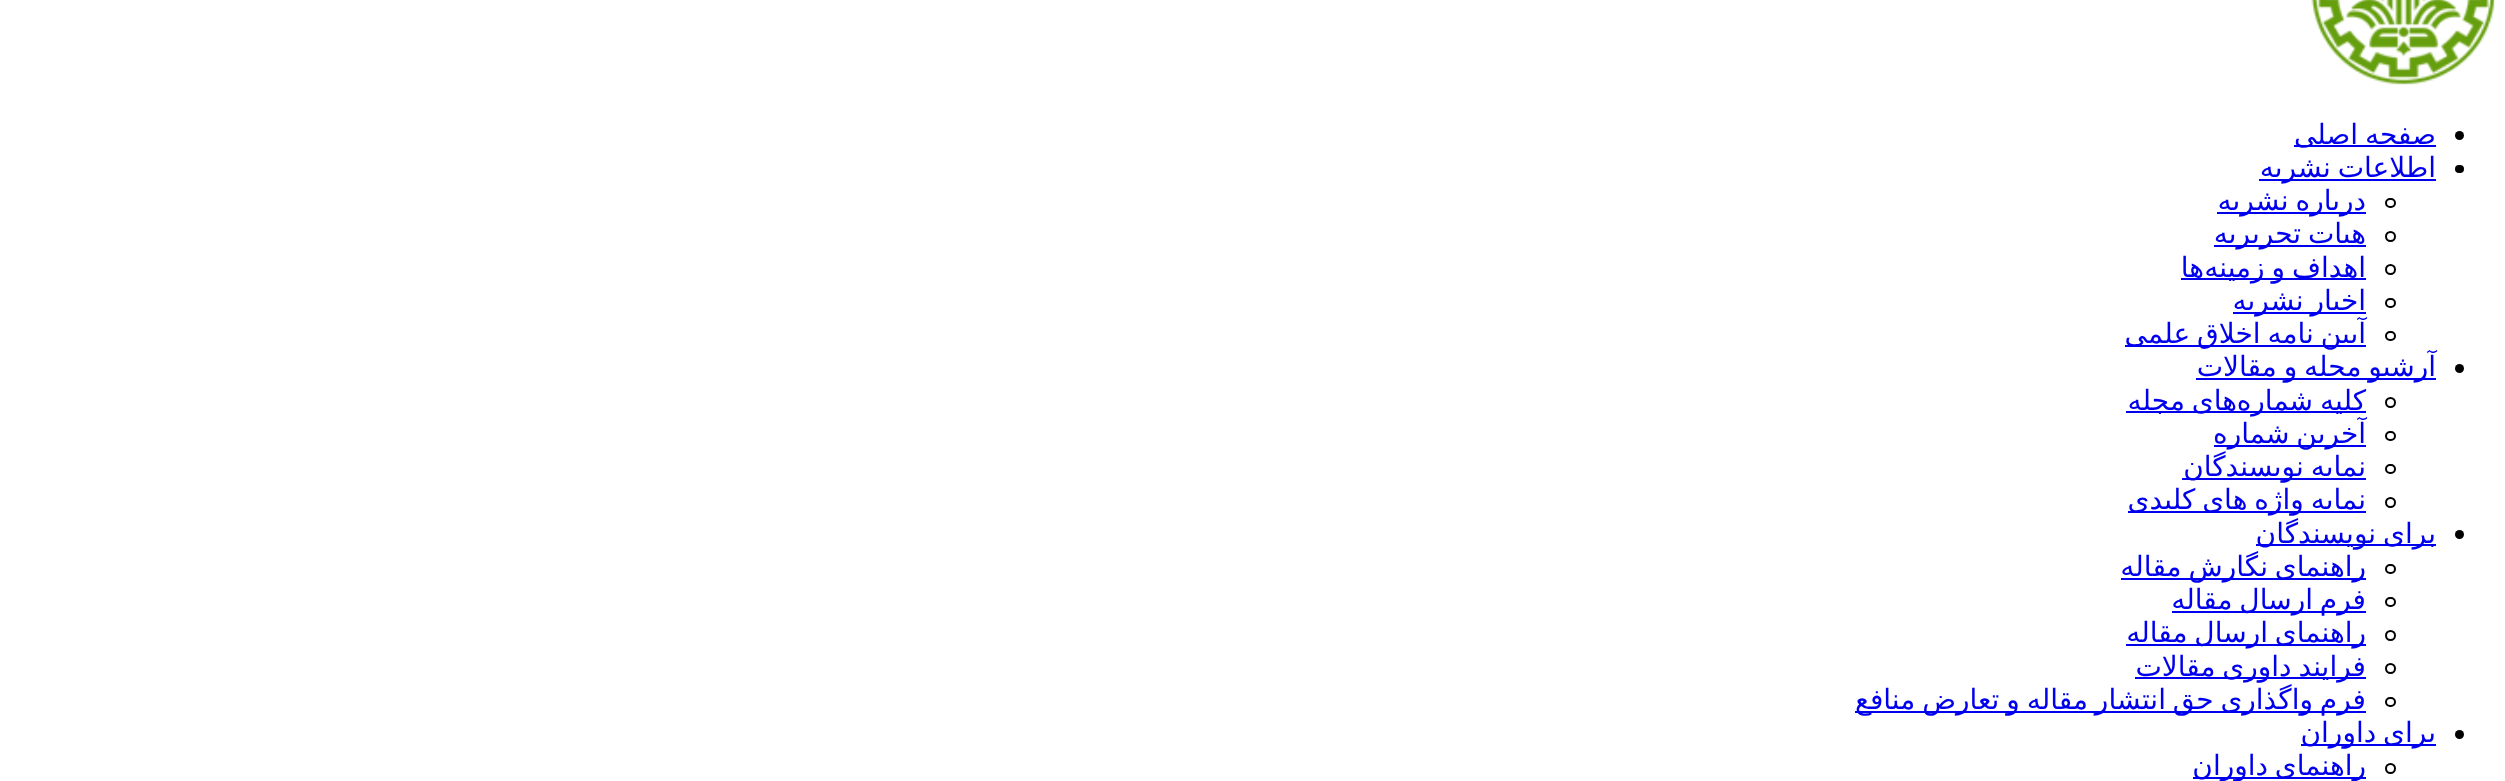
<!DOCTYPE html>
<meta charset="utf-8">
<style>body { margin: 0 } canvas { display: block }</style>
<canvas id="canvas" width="2505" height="781"></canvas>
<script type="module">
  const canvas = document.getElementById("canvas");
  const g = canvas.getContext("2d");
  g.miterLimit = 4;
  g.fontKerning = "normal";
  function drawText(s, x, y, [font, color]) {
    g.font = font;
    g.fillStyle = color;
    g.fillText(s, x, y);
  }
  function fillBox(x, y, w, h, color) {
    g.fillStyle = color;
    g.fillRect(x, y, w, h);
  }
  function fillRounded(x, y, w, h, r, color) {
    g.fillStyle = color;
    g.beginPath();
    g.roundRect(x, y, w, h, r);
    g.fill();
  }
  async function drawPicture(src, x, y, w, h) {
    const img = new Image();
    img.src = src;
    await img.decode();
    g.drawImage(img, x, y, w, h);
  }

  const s1 = ["28px DejaVu Sans", "#0000EE"];

  fillBox(0, 0, 2505, 781, "#FFFFFF");
  await drawPicture("pic1.png", 2311, 0, 184, 85);
  g.fillStyle = "#000000";
  g.beginPath();
  g.arc(2459.5, 135.5, 4.5, 0, Math.PI * 2);
  g.fill();
  fillBox(2294, 145, 142, 2, "#0000EE");
  g.wordSpacing = "-2px";
  g.direction = "rtl";
  drawText("صفحه اصلی", 2436, 144, s1);
  fillRounded(2455, 165, 9, 8, 4, "#000000");
  fillBox(2259, 179, 177, 2, "#0000EE");
  drawText("اطلاعات نشریه", 2436, 177, s1);
  g.beginPath();
  g.roundRect(2386, 199, 9, 8, 4);
  g.strokeStyle = "#000000";
  g.lineWidth = 2;
  g.stroke();
  fillBox(2217, 212, 149, 2, "#0000EE");
  drawText("درباره نشریه", 2366, 210, s1);
  g.beginPath();
  g.arc(2390.5, 236.5, 4.5, 0, Math.PI * 2);
  g.stroke();
  fillBox(2214, 245, 152, 2, "#0000EE");
  drawText("هیات تحریریه", 2366, 243, s1);
  g.beginPath();
  g.arc(2390.5, 269.5, 4.5, 0, Math.PI * 2);
  g.stroke();
  fillBox(2181, 278, 185, 2, "#0000EE");
  drawText("اهداف و زمینه", 2366, 277, s1);
  g.wordSpacing = "0px";
  drawText("ها", 2204, 277, s1);
  g.beginPath();
  g.roundRect(2386, 299, 9, 8, 4);
  g.stroke();
  fillBox(2233, 312, 133, 2, "#0000EE");
  g.wordSpacing = "-2px";
  drawText("اخبار نشریه", 2366, 310, s1);
  g.beginPath();
  g.roundRect(2386, 332, 9, 8, 4);
  g.stroke();
  fillBox(2125, 345, 241, 2, "#0000EE");
  drawText("آیین نامه اخلاق علمی", 2366, 343, s1);
  g.fillStyle = "#000000";
  g.beginPath();
  g.arc(2459.5, 368.5, 4.5, 0, Math.PI * 2);
  g.fill();
  fillBox(2196, 378, 240, 2, "#0000EE");
  drawText("آرشیو مجله و مقالات", 2436, 376, s1);
  g.beginPath();
  g.arc(2390.5, 402.5, 4.5, 0, Math.PI * 2);
  g.stroke();
  fillBox(2126, 411, 240, 2, "#0000EE");
  drawText("کلیه شماره", 2366, 410, s1);
  drawText("های مجله", 2237, 410, s1);
  g.beginPath();
  g.roundRect(2386, 432, 9, 8, 4);
  g.stroke();
  fillBox(2214, 445, 152, 2, "#0000EE");
  drawText("آخرین شماره", 2366, 443, s1);
  g.beginPath();
  g.roundRect(2386, 465, 9, 8, 4);
  g.stroke();
  fillBox(2182, 478, 184, 2, "#0000EE");
  drawText("نمایه نویسندگان", 2366, 476, s1);
  g.beginPath();
  g.arc(2390.5, 502.5, 4.5, 0, Math.PI * 2);
  g.stroke();
  fillBox(2128, 511, 238, 2, "#0000EE");
  drawText("نمایه واژه های کلیدی", 2366, 509, s1);
  g.fillStyle = "#000000";
  g.beginPath();
  g.arc(2459.5, 534.5, 4.5, 0, Math.PI * 2);
  g.fill();
  fillBox(2256, 544, 180, 2, "#0000EE");
  drawText("برای نویسندگان", 2436, 543, s1);
  g.beginPath();
  g.roundRect(2386, 565, 9, 8, 4);
  g.stroke();
  fillBox(2121, 578, 245, 2, "#0000EE");
  drawText("راهنمای نگارش مقاله", 2366, 576, s1);
  g.beginPath();
  g.roundRect(2386, 598, 9, 8, 4);
  g.stroke();
  fillBox(2172, 611, 194, 2, "#0000EE");
  drawText("فرم ارسال مقاله", 2366, 609, s1);
  g.beginPath();
  g.arc(2390.5, 635.5, 4.5, 0, Math.PI * 2);
  g.stroke();
  fillBox(2126, 644, 240, 2, "#0000EE");
  drawText("راهنمای ارسال مقاله", 2366, 642, s1);
  g.beginPath();
  g.arc(2390.5, 668.5, 4.5, 0, Math.PI * 2);
  g.stroke();
  fillBox(2135, 677, 231, 2, "#0000EE");
  drawText("فرایند داوری مقالات", 2366, 676, s1);
  g.beginPath();
  g.roundRect(2386, 698, 9, 8, 4);
  g.stroke();
  fillBox(1855, 711, 511, 2, "#0000EE");
  drawText("فرم واگذاری حق انتشار مقاله و تعارض منافع", 2366, 709, s1);
  g.fillStyle = "#000000";
  g.beginPath();
  g.arc(2459.5, 734.5, 4.5, 0, Math.PI * 2);
  g.fill();
  fillBox(2301, 744, 135, 2, "#0000EE");
  drawText("برای داوران", 2436, 742, s1);
  g.beginPath();
  g.arc(2390.5, 768.5, 4.5, 0, Math.PI * 2);
  g.stroke();
  fillBox(2193, 777, 173, 2, "#0000EE");
  drawText("راهنمای داوران", 2366, 775, s1);
</script>
